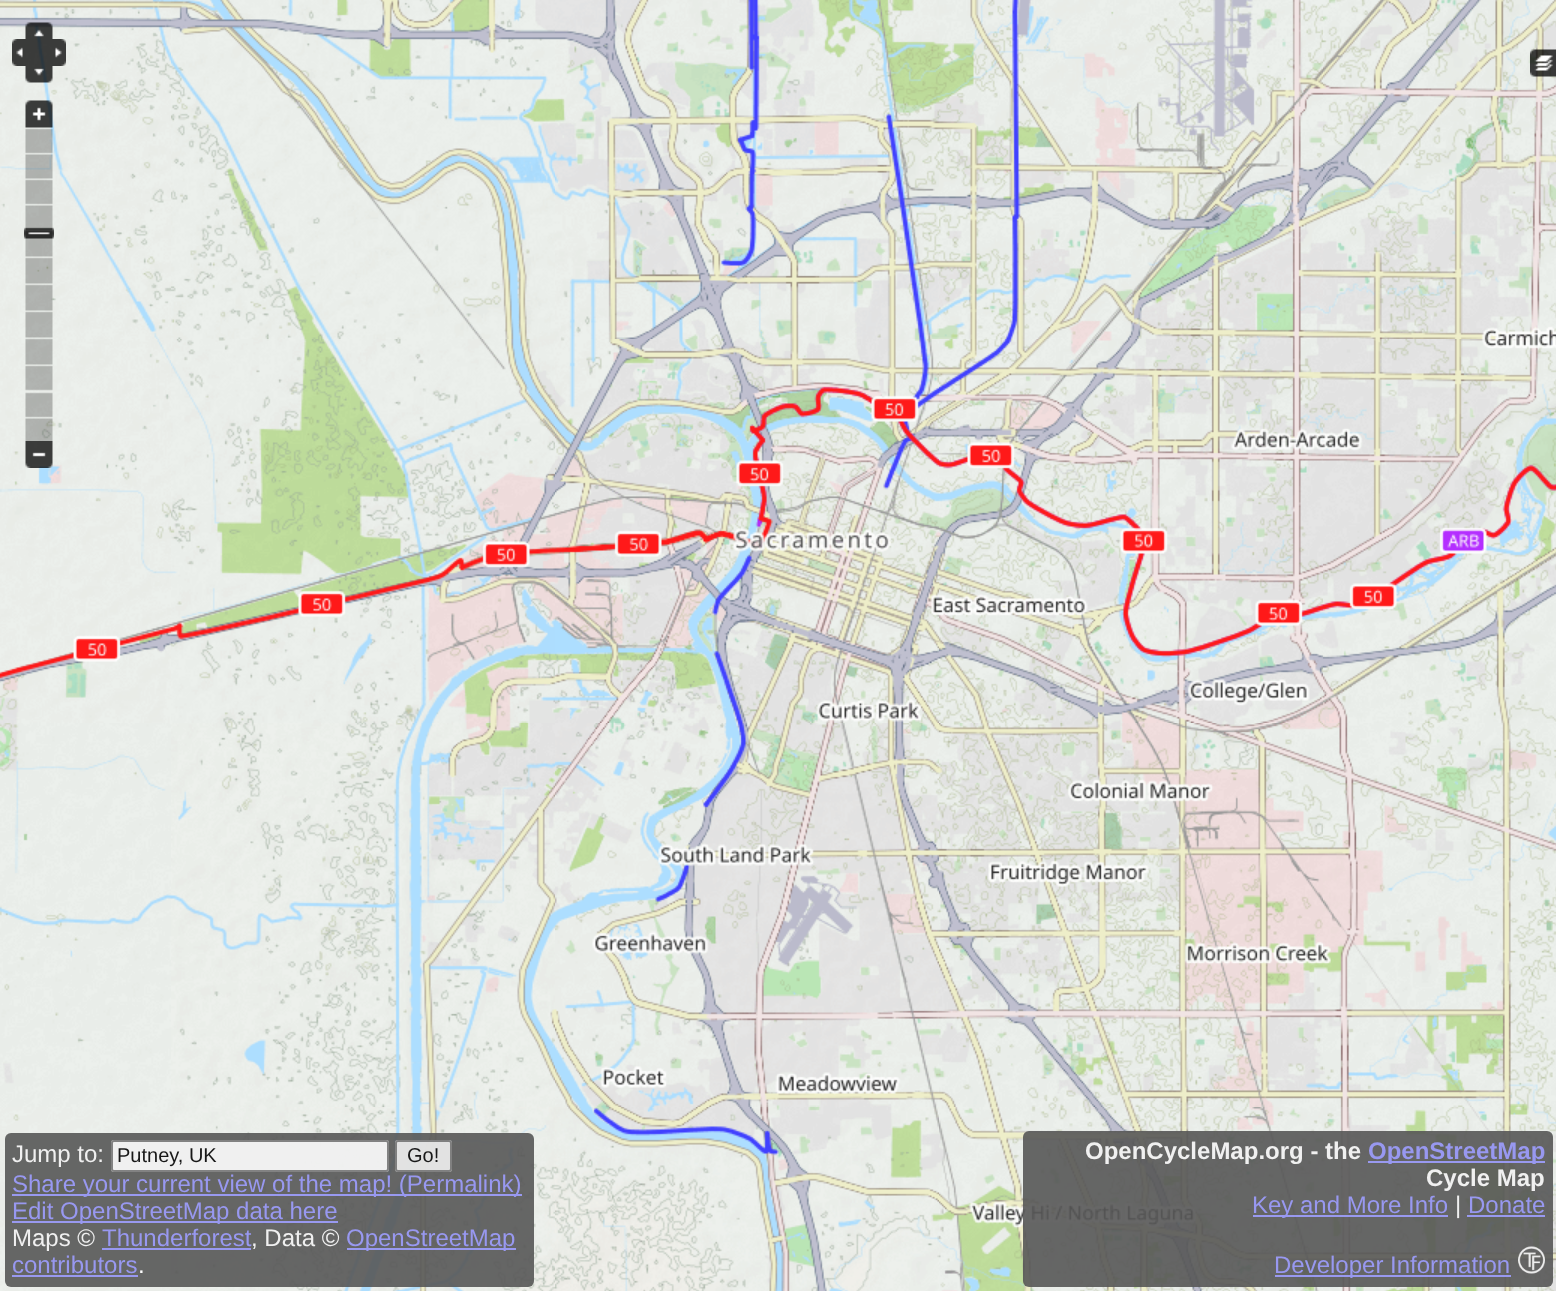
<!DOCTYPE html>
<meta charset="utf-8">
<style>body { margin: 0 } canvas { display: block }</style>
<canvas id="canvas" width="1556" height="1291"></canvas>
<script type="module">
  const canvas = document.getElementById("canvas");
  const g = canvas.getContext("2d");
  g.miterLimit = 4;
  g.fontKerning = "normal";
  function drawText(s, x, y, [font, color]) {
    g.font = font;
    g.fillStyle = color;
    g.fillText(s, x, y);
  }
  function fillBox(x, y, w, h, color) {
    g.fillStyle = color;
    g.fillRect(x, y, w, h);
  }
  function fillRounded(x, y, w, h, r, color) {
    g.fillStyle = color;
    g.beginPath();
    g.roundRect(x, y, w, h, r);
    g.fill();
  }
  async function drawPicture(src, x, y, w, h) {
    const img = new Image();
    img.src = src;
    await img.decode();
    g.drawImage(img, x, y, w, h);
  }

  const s1 = ["24px Liberation Sans", "#F0F0F0"];
  const s2 = ["20px Liberation Sans", "#181818"];
  const s3 = ["24px Liberation Sans", "#9898F0"];
  const s4 = ["24px Liberation Sans", "#FDFDFD"];
  const s5 = ["bold 24px Liberation Sans", "#F0F0F0"];
  const s6 = ["bold 24px Liberation Sans", "#9898F0"];

  fillBox(0, 0, 1556, 1291, "#FFFFFF");
  await drawPicture("pic16.png", 0, 1107, 171, 184);
  await drawPicture("pic17.png", 171, 1107, 384, 184);
  fillRounded(5, 1133, 529, 154, 6, "rgba(87, 87, 87, 0.9)");
  drawText("Jump to:", 12, 1162, s1);
  fillRounded(111, 1140, 278, 32, 3, "rgba(255, 255, 255, 0.9)");
  g.beginPath();
  g.roundRect(112, 1141, 276, 30, 2);
  g.strokeStyle = "rgba(118, 118, 118, 0.9)";
  g.lineWidth = 2;
  g.stroke();
  drawText("Putney, UK", 117, 1162, s2);
  fillRounded(395, 1140, 57, 32, 3, "rgba(239, 239, 239, 0.9)");
  g.beginPath();
  g.roundRect(396, 1141, 55, 30, 2);
  g.stroke();
  drawText("Go!", 407, 1162, s2);
  fillBox(12, 1194, 510, 2, "rgba(158, 158, 255, 0.9)");
  drawText("Share your current view of the map! (Permalink)", 12, 1192, s3);
  fillBox(12, 1221, 326, 2, "rgba(158, 158, 255, 0.9)");
  drawText("Edit OpenStreetMap data here", 12, 1219, s3);
  drawText("Maps ©", 12, 1246, s1);
  drawText("Thunderforest", 102, 1246, s3);
  fillBox(102, 1248, 149, 2, "#9898F0");
  drawText(", Data ©", 251, 1246, s1);
  fillBox(347, 1248, 169, 2, "rgba(158, 158, 255, 0.9)");
  drawText("OpenStreetMap", 346, 1246, s3);
  drawText("contributors", 12, 1273, s3);
  fillBox(12, 1275, 126, 2, "rgba(158, 158, 255, 0.9)");
  drawText(".", 138, 1273, s4);
  await drawPicture("pic1.png", 0, 0, 171, 339);
  await drawPicture("pic2.png", 171, 0, 384, 339);
  await drawPicture("pic3.png", 555, 0, 384, 339);
  await drawPicture("pic4.png", 939, 0, 384, 339);
  await drawPicture("pic5.png", 1323, 0, 233, 339);
  await drawPicture("pic6.png", 0, 339, 171, 384);
  await drawPicture("pic7.png", 171, 339, 384, 384);
  await drawPicture("pic8.png", 555, 339, 384, 384);
  await drawPicture("pic9.png", 939, 339, 384, 384);
  await drawPicture("pic10.png", 1323, 339, 233, 384);
  await drawPicture("pic11.png", 0, 723, 171, 384);
  await drawPicture("pic12.png", 171, 723, 384, 384);
  await drawPicture("pic13.png", 555, 723, 384, 384);
  await drawPicture("pic14.png", 939, 723, 384, 384);
  await drawPicture("pic15.png", 1323, 723, 233, 384);
  await drawPicture("pic18.png", 555, 1107, 384, 184);
  await drawPicture("pic19.png", 939, 1107, 384, 184);
  await drawPicture("pic20.png", 1323, 1107, 233, 184);
  await drawPicture("pic21.png", 25, 22, 28, 17);
  await drawPicture("pic22.png", 12, 39, 27, 27);
  await drawPicture("pic23.png", 39, 39, 27, 27);
  await drawPicture("pic24.png", 25, 66, 28, 17);
  await drawPicture("pic25.png", 25, 100, 28, 28);
  await drawPicture("pic26.png", 25, 128, 28, 313);
  await drawPicture("pic27.png", 24, 227, 30, 12);
  await drawPicture("pic28.png", 25, 441, 28, 27);
  await drawPicture("pic29.png", 1530, 49, 26, 28);
  fillRounded(1023, 1131, 530, 156, 6, "rgba(87, 87, 87, 0.9)");
  drawText("OpenCycleMap.org - the", 1085, 1159, s5);
  fillBox(1368, 1161, 177, 2, "rgba(158, 158, 255, 0.9)");
  drawText("OpenStreetMap", 1368, 1159, s6);
  drawText("Cycle Map", 1426, 1186, s5);
  fillBox(1253, 1215, 195, 2, "rgba(158, 158, 255, 0.9)");
  drawText("Key and More Info", 1252, 1213, s3);
  drawText("|", 1455, 1213, s1);
  drawText("Donate", 1468, 1213, s3);
  fillBox(1467, 1215, 78, 2, "rgba(158, 158, 255, 0.9)");
  fillBox(1275, 1275, 236, 2, "rgba(158, 158, 255, 0.9)");
  drawText("Developer Information", 1274, 1273, s3);
  await drawPicture("pic30.png", 1518, 1246, 27, 28);
</script>
